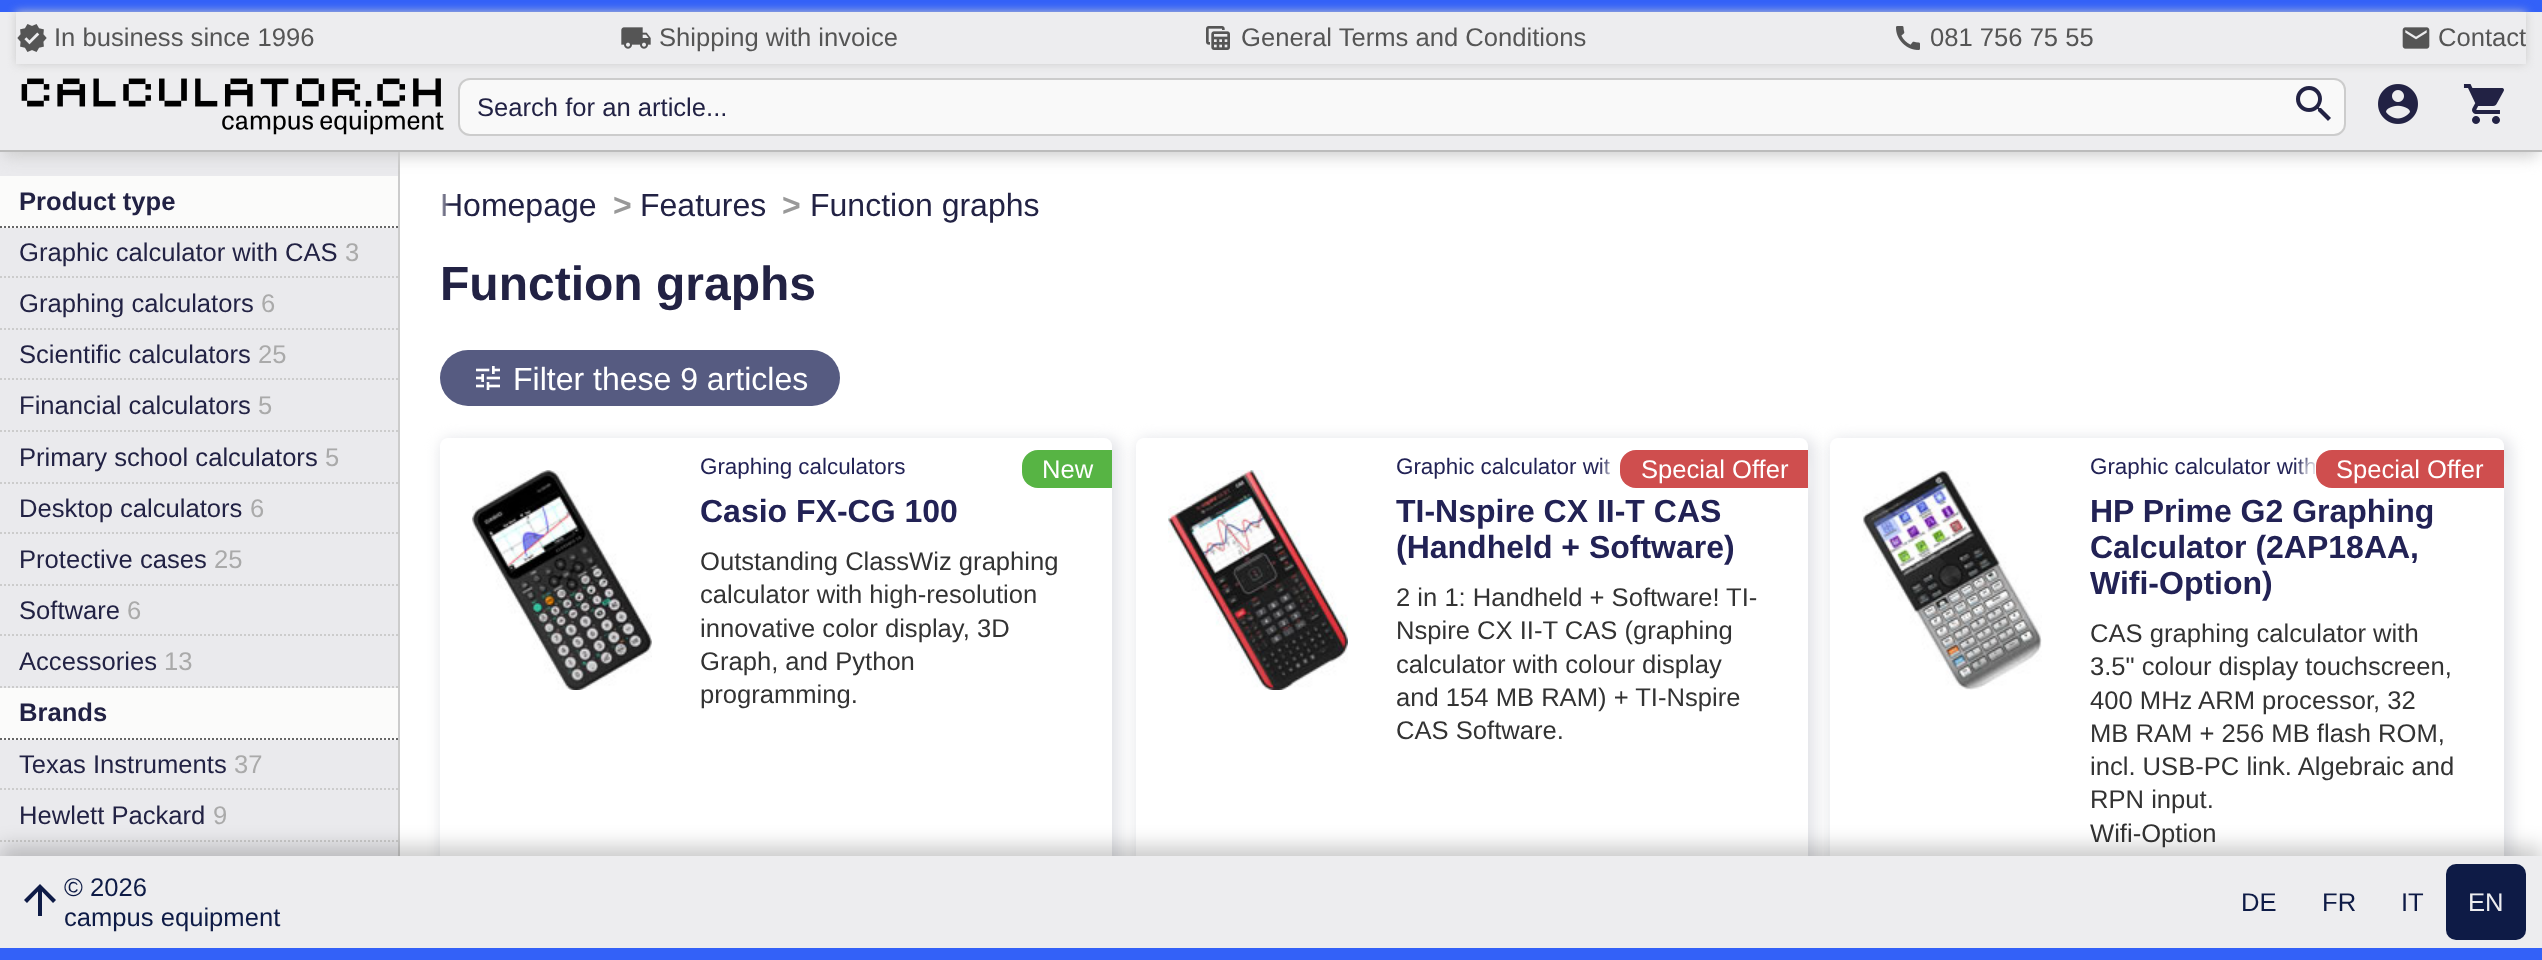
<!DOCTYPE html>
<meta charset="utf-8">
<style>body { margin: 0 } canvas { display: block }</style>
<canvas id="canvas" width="2542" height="960"></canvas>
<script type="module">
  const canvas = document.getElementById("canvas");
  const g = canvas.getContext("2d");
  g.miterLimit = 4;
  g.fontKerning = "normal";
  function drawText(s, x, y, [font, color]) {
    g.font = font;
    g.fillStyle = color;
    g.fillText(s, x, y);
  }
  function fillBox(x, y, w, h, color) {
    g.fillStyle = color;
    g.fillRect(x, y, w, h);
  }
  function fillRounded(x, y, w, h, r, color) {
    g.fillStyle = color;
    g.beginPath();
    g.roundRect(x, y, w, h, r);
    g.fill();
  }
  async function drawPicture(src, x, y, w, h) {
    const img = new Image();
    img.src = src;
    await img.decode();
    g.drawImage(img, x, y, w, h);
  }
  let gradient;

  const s1 = ["25.6px Liberation Sans", "#555555"];
  const s2 = ["25.6px Liberation Sans", "#222244"];
  const s3 = ["bold 25.6px Liberation Sans", "#222244"];
  const s4 = ["25.6px Liberation Sans", "#AAAAAA"];
  const s5 = ["32px Liberation Sans", "#222244"];
  const s6 = ["bold 32px Liberation Sans", "#999999"];
  const s7 = ["bold 48px Liberation Sans", "#222244"];
  const s8 = ["32px Liberation Sans", "#FFFFFF"];
  const s9 = ["22.4px Liberation Sans", "#222255"];
  const s10 = ["25.6px Liberation Sans", "#FFFFFF"];
  const s11 = ["bold 32px Liberation Sans", "#222255"];
  const s12 = ["25.6px Liberation Sans", "#333333"];
  const s13 = ["25.6px Liberation Sans", "#0E1B46"];
  const s14 = ["25.6px Liberation Sans", "#EDEDEF"];

  fillBox(0, 0, 2542, 960, "#FFFFFF");
  fillBox(0, 152, 398, 704, "#EAEAED");
  fillBox(398, 152, 2, 704, "#CCCCCC");
  fillBox(0, 176, 398, 52, "#FBFBFA");
  g.fillStyle = "#CCCCCC";
  g.filter = "blur(8px)";
  g.beginPath();
  g.rect(4, 12, 2534, 144);
  g.fill();
  g.filter = "none";
  fillBox(0, 12, 2542, 138, "#EDEDEF");
  fillBox(0, 0, 2542, 12, "#3361F8");
  fillBox(0, 150, 2542, 2, "#BBBBBB");
  g.save();
  g.beginPath();
  g.moveTo(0, 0);
  g.lineTo(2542, 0);
  g.lineTo(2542, 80);
  g.lineTo(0, 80);
  g.closePath();
  g.moveTo(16, 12);
  g.lineTo(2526, 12);
  g.lineTo(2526, 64);
  g.lineTo(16, 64);
  g.closePath();
  g.clip("evenodd");
  g.fillStyle = "#CCCCCC";
  g.filter = "blur(5px)";
  g.beginPath();
  g.rect(16, 12, 2510, 52);
  g.fill();
  g.filter = "none";
  g.restore();
  await drawPicture("pic1.png", 17, 24, 30, 28);
  drawText("In business since 1996", 54, 46, s1);
  await drawPicture("pic2.png", 621, 27, 30, 22);
  drawText("Shipping with invoice", 659, 46, s1);
  await drawPicture("pic3.png", 1206, 26, 24, 24);
  drawText("General Terms and Conditions", 1241, 46, s1);
  await drawPicture("pic4.png", 1896, 26, 24, 24);
  drawText("081 756 75 55", 1930, 46, s1);
  await drawPicture("pic5.png", 2402, 27, 28, 22);
  drawText("Contact", 2438, 46, s1);
  await drawPicture("pic6.png", 21, 78, 423, 57);
  g.fillStyle = "#F9F9F9";
  g.beginPath();
  g.roundRect(459, 79, 1886, 56, 11);
  g.fill();
  g.strokeStyle = "#CCCCCC";
  g.lineWidth = 2;
  g.stroke();
  drawText("Search for an article...", 477, 116, s2);
  await drawPicture("pic7.png", 2296, 86, 35, 35);
  await drawPicture("pic8.png", 2378, 84, 40, 40);
  await drawPicture("pic9.png", 2463, 84, 41, 40);
  g.beginPath();
  g.moveTo(0, 227);
  g.lineTo(398, 227);
  g.strokeStyle = "#666666";
  g.setLineDash([2, 2]);
  g.stroke();
  drawText("Product type", 19, 210, s3);
  g.beginPath();
  g.moveTo(0, 277);
  g.lineTo(398, 277);
  g.strokeStyle = "#CCCCCC";
  g.stroke();
  drawText("Graphic calculator with CAS", 19, 261, s2);
  drawText("3", 345, 261, s4);
  g.beginPath();
  g.moveTo(0, 329);
  g.lineTo(398, 329);
  g.stroke();
  drawText("Graphing calculators", 19, 312, s2);
  drawText("6", 261, 312, s4);
  g.beginPath();
  g.moveTo(0, 379);
  g.lineTo(398, 379);
  g.stroke();
  drawText("Scientific calculators", 19, 363, s2);
  drawText("25", 258, 363, s4);
  g.beginPath();
  g.moveTo(0, 431);
  g.lineTo(398, 431);
  g.stroke();
  drawText("Financial calculators", 19, 414, s2);
  drawText("5", 258, 414, s4);
  g.beginPath();
  g.moveTo(0, 483);
  g.lineTo(398, 483);
  g.stroke();
  drawText("Primary school calculators", 19, 466, s2);
  drawText("5", 325, 466, s4);
  g.beginPath();
  g.moveTo(0, 533);
  g.lineTo(398, 533);
  g.stroke();
  drawText("Desktop calculators", 19, 517, s2);
  drawText("6", 250, 517, s4);
  g.beginPath();
  g.moveTo(0, 585);
  g.lineTo(398, 585);
  g.stroke();
  drawText("Protective cases", 19, 568, s2);
  drawText("25", 214, 568, s4);
  g.beginPath();
  g.moveTo(0, 635);
  g.lineTo(398, 635);
  g.stroke();
  drawText("Software", 19, 619, s2);
  drawText("6", 127, 619, s4);
  g.beginPath();
  g.moveTo(0, 687);
  g.lineTo(398, 687);
  g.stroke();
  drawText("Accessories", 19, 670, s2);
  drawText("13", 164, 670, s4);
  fillBox(0, 688, 398, 52, "#FBFBFA");
  g.beginPath();
  g.moveTo(0, 739);
  g.lineTo(398, 739);
  g.strokeStyle = "#666666";
  g.stroke();
  drawText("Brands", 19, 721, s3);
  g.beginPath();
  g.moveTo(0, 789);
  g.lineTo(398, 789);
  g.strokeStyle = "#CCCCCC";
  g.stroke();
  drawText("Texas Instruments", 19, 773, s2);
  drawText("37", 234, 773, s4);
  g.beginPath();
  g.moveTo(0, 841);
  g.lineTo(398, 841);
  g.stroke();
  drawText("Hewlett Packard", 19, 824, s2);
  drawText("9", 213, 824, s4);
  drawText("Homepage", 440, 216, s5);
  drawText(">", 613, 216, s6);
  drawText("Features", 640, 216, s5);
  drawText(">", 782, 216, s6);
  drawText("Function graphs", 810, 216, s5);
  gradient = g.createLinearGradient(450, 206, 430, 206);
  gradient.addColorStop(0, "rgba(255, 255, 255, 0)");
  gradient.addColorStop(0.77, "#FFFFFF");
  g.fillStyle = gradient;
  g.fillRect(442, 194, 8, 22);
  drawText("Function graphs", 440, 300, s7);
  fillRounded(440, 350, 400, 56, 28, "#565B81");
  await drawPicture("pic10.png", 476, 366, 24, 24);
  drawText("Filter these 9 articles", 513, 390, s8);
  g.fillStyle = "#E4E5E9";
  g.filter = "blur(7px)";
  g.beginPath();
  g.roundRect(440, 438, 680, 512, 12);
  g.fill();
  g.filter = "none";
  fillRounded(440, 438, 672, 504, 8, "#FFFFFF");
  await drawPicture("pic11.png", 472, 470, 180, 220);
  drawText("Graphing calculators", 700, 474, s9);
  g.fillStyle = "#57B444";
  g.beginPath();
  g.roundRect(1022, 450, 90, 38, [16, 0, 0, 16]);
  g.fill();
  drawText("New", 1042, 478, s10);
  drawText("Casio FX-CG 100", 700, 522, s11);
  drawText("Outstanding ClassWiz graphing", 700, 570, s12);
  drawText("calculator with high-resolution", 700, 603, s12);
  drawText("innovative color display, 3D", 700, 637, s12);
  drawText("Graph, and Python", 700, 670, s12);
  drawText("programming.", 700, 703, s12);
  g.fillStyle = "#E4E5E9";
  g.filter = "blur(7px)";
  g.beginPath();
  g.roundRect(1136, 438, 680, 512, 12);
  g.fill();
  g.filter = "none";
  fillRounded(1136, 438, 672, 504, 8, "#FFFFFF");
  await drawPicture("pic12.png", 1168, 470, 180, 220);
  drawText("Graphic calculator wit", 1396, 474, s9);
  g.fillStyle = "rgba(255, 255, 255, 0.89)";
  g.filter = "blur(6px)";
  g.beginPath();
  g.roundRect(1606, 452, 200, 50, 22);
  g.fill();
  g.filter = "none";
  g.fillStyle = "#CF4E4E";
  g.beginPath();
  g.roundRect(1620, 450, 188, 38, [16, 0, 0, 16]);
  g.fill();
  drawText("Special Offer", 1641, 478, s10);
  drawText("TI-Nspire CX II-T CAS", 1396, 522, s11);
  drawText("(Handheld + Software)", 1396, 558, s11);
  drawText("2 in 1: Handheld + Software!", 1396, 606, s12);
  drawText("TI-", 1726, 606, s12);
  drawText("Nspire CX II-T CAS (graphing", 1396, 639, s12);
  drawText("calculator with colour display", 1396, 673, s12);
  drawText("and 154 MB RAM) + TI-Nspire", 1396, 706, s12);
  drawText("CAS Software.", 1396, 739, s12);
  g.fillStyle = "#E4E5E9";
  g.filter = "blur(7px)";
  g.beginPath();
  g.roundRect(1830, 438, 682, 512, 12);
  g.fill();
  g.filter = "none";
  fillRounded(1830, 438, 674, 504, 8, "#FFFFFF");
  await drawPicture("pic13.png", 1862, 470, 180, 220);
  drawText("Graphic calculator with", 2090, 474, s9);
  g.fillStyle = "rgba(255, 255, 255, 0.89)";
  g.filter = "blur(6px)";
  g.beginPath();
  g.roundRect(2302, 452, 200, 50, 22);
  g.fill();
  g.filter = "none";
  g.fillStyle = "#CF4E4E";
  g.beginPath();
  g.roundRect(2316, 450, 188, 38, [16, 0, 0, 16]);
  g.fill();
  drawText("Special Offer", 2336, 478, s10);
  drawText("HP Prime G2 Graphing", 2090, 522, s11);
  drawText("Calculator (2AP18AA,", 2090, 558, s11);
  drawText("Wifi-Option)", 2090, 594, s11);
  drawText("CAS graphing calculator with", 2090, 642, s12);
  drawText("3.5\" colour display touchscreen,", 2090, 675, s12);
  drawText("400 MHz ARM processor, 32", 2090, 709, s12);
  drawText("MB RAM + 256 MB flash ROM,", 2090, 742, s12);
  drawText("incl. USB-PC link. Algebraic and", 2090, 775, s12);
  drawText("RPN input.", 2090, 808, s12);
  drawText("Wifi-Option", 2090, 842, s12);
  g.fillStyle = "rgba(0, 0, 0, 0.2)";
  g.filter = "blur(10px)";
  g.beginPath();
  g.rect(0, 846, 2542, 104);
  g.fill();
  g.filter = "none";
  fillBox(0, 856, 2542, 92, "#EDEDEF");
  fillBox(0, 948, 2542, 12, "#3361F8");
  g.fillStyle = "#0E1B46";
  g.beginPath();
  g.moveTo(24, 900);
  g.lineTo(40, 884);
  g.lineTo(56, 900);
  g.lineTo(53, 903);
  g.lineTo(42, 891.5);
  g.lineTo(42, 916);
  g.lineTo(38, 916);
  g.lineTo(38, 891.5);
  g.lineTo(27, 903);
  g.closePath();
  g.fill();
  drawText("© 2026", 64, 896, s13);
  drawText("campus equipment", 64, 926, s13);
  drawText("DE", 2241, 911, s13);
  drawText("FR", 2322, 911, s13);
  drawText("IT", 2401, 911, s13);
  fillRounded(2446, 864, 80, 76, 10, "#0E1B46");
  drawText("EN", 2468, 911, s14);
</script>
